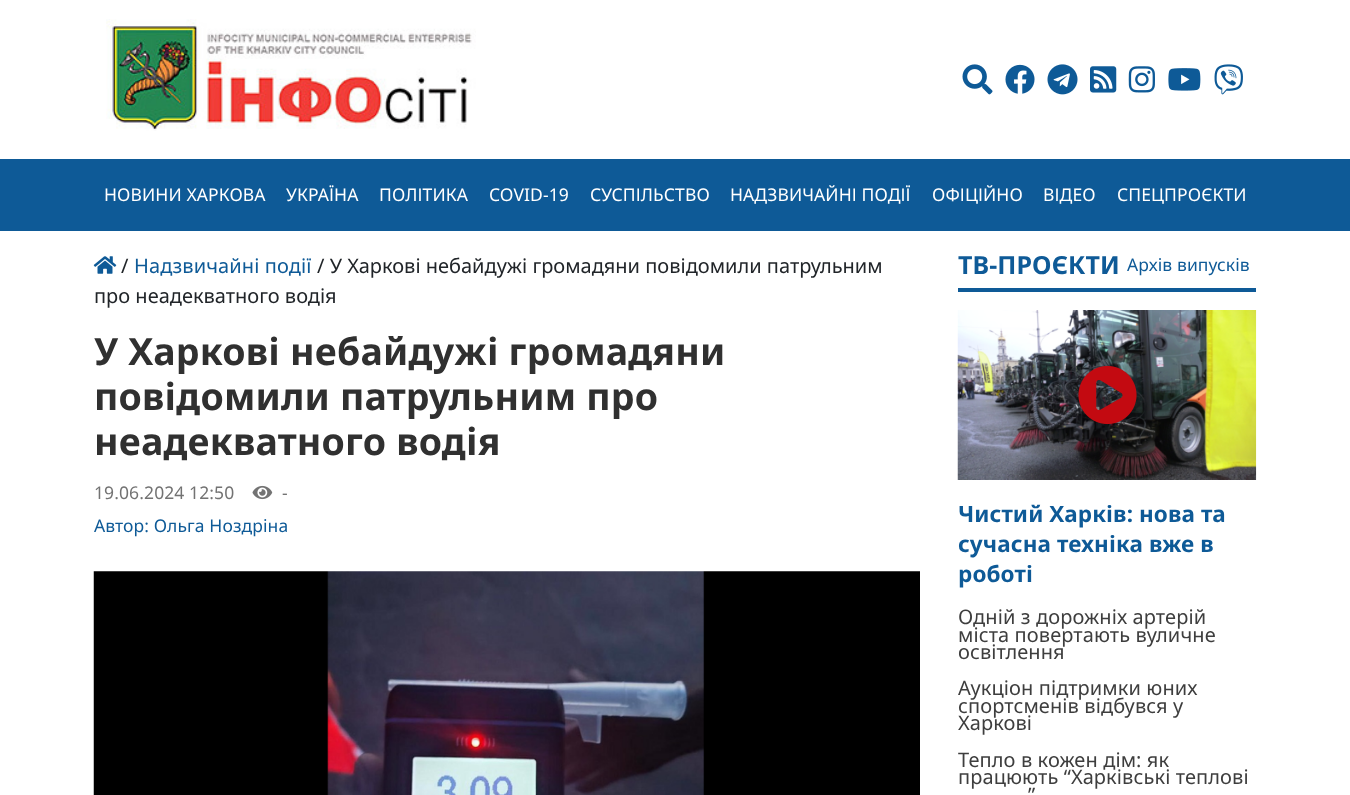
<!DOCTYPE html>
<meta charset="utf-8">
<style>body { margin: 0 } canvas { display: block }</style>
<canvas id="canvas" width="1350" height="795"></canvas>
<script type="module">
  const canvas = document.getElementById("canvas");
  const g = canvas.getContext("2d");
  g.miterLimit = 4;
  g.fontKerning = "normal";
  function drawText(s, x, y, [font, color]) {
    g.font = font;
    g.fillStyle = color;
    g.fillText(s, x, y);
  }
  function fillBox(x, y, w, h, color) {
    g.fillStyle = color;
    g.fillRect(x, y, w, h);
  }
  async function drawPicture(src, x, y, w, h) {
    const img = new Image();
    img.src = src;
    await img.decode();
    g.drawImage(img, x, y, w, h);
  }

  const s1 = ["17.5px Noto Sans", "#FFFFFF"];
  const s2 = ["20px Noto Sans", "#212529"];
  const s3 = ["20px Noto Sans", "#0E5A97"];
  const s4 = ["bold 37.5px Noto Sans", "#303030"];
  const s5 = ["17.5px Noto Sans", "#737373"];
  const s6 = ["17.5px Noto Sans", "#0E5A97"];
  const s7 = ["bold 25px Noto Sans", "#0E5A97"];
  const s8 = ["bold 22.5px Noto Sans", "#0E5A97"];
  const s9 = ["20px Noto Sans", "#3E3E3E"];

  fillBox(0, 0, 1350, 795, "#FFFFFF");
  await drawPicture("pic1.png", 106, 19, 370, 112);
  await drawPicture("pic2.png", 962, 64, 31, 31);
  await drawPicture("pic3.png", 1005, 64, 30, 30);
  await drawPicture("pic4.png", 1047, 64, 31, 31);
  await drawPicture("pic5.png", 1090, 66, 27, 27);
  await drawPicture("pic6.png", 1128, 66, 27, 27);
  await drawPicture("pic7.png", 1168, 68, 33, 23);
  await drawPicture("pic8.png", 1214, 64, 29, 31);
  fillBox(0, 159, 1350, 72, "#0E5A97");
  g.letterSpacing = "0.1px";
  drawText("НОВИНИ ХАРКОВА", 104, 201, s1);
  drawText("УКРАЇНА", 286, 201, s1);
  drawText("ПОЛІТИКА", 379, 201, s1);
  drawText("COVID-19", 489, 201, s1);
  drawText("СУСПІЛЬСТВО", 590, 201, s1);
  drawText("НАДЗВИЧАЙНІ ПОДІЇ", 730, 201, s1);
  drawText("ОФІЦІЙНО", 932, 201, s1);
  drawText("ВІДЕО", 1043, 201, s1);
  drawText("СПЕЦПРОЄКТИ", 1117, 201, s1);
  await drawPicture("pic9.png", 93, 256, 24, 18);
  g.letterSpacing = "0px";
  drawText("/", 121, 273, s2);
  g.letterSpacing = "0.1px";
  drawText("Надзвичайні події", 134, 273, s3);
  g.letterSpacing = "0px";
  drawText("/ У Харкові небайдужі громадяни повідомили патрульним", 317, 273, s2);
  drawText("про неадекватного водія", 94, 303, s2);
  g.letterSpacing = "0.2px";
  drawText("У Харкові небайдужі громадяни", 94, 365, s4);
  drawText("повідомили патрульним про", 94, 410, s4);
  drawText("неадекватного водія", 94, 455, s4);
  g.letterSpacing = "0.1px";
  drawText("19.06.2024 12:50", 94, 499, s5);
  await drawPicture("pic10.png", 252, 485, 21, 15);
  drawText("-", 282, 499, s5);
  drawText("Автор: Ольга Ноздріна", 94, 532, s6);
  await drawPicture("pic11.png", 93, 571, 827, 224);
  fillBox(958, 288, 298, 4, "#0E5A97");
  drawText("ТВ-ПРОЄКТИ", 958, 274, s7);
  drawText("Архів випусків", 1127, 271, s6);
  await drawPicture("pic12.png", 957, 310, 300, 170);
  await drawPicture("pic13.png", 1078, 365, 59, 60);
  drawText("Чистий Харків: нова та", 958, 522, s8);
  drawText("сучасна техніка вже в", 958, 552, s8);
  drawText("роботі", 958, 582, s8);
  drawText("Одній з дорожніх артерій", 958, 624, s9);
  drawText("міста повертають вуличне", 958, 642, s9);
  drawText("освітлення", 958, 659, s9);
  drawText("Аукціон підтримки юних", 958, 695, s9);
  drawText("спортсменів відбувся у", 958, 713, s9);
  drawText("Харкові", 958, 730, s9);
  drawText("Тепло в кожен дім: як", 958, 767, s9);
  drawText("працюють “Харківські теплові", 958, 784, s9);
  drawText("”", 1028, 802, s9);
</script>
